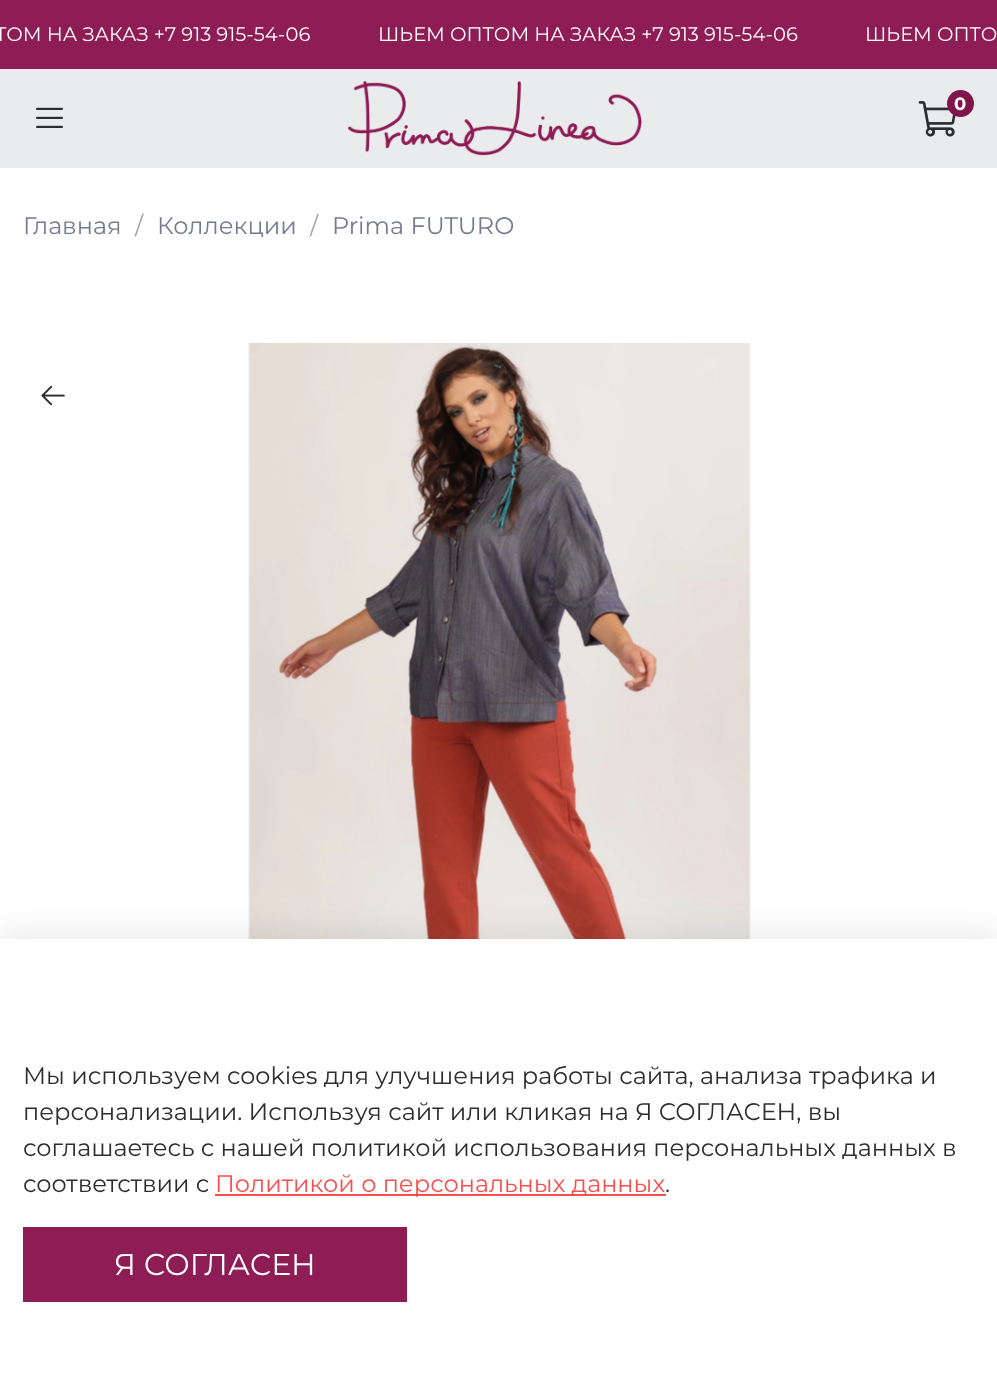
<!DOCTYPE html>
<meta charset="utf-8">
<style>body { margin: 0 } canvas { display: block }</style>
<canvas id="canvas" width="997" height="1381"></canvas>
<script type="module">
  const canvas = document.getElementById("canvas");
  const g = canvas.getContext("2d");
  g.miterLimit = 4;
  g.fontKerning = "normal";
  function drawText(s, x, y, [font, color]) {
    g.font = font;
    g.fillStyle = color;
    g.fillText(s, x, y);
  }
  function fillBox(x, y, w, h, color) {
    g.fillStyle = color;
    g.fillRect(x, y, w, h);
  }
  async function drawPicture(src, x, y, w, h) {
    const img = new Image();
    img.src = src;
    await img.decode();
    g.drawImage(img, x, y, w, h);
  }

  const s1 = ["19.5px Montserrat", "#FFFFFF"];
  const s2 = ["bold 18px Montserrat", "#FFFFFF"];
  const s3 = ["24px Montserrat", "#757C8E"];
  const s4 = ["24px Montserrat", "#9EA3B0"];
  const s5 = ["24px Montserrat", "#2D2D2D"];
  const s6 = ["24px Montserrat", "#FA4F4F"];
  const s7 = ["30px Montserrat", "#FFFFFF"];

  fillBox(0, 0, 997, 1381, "#FFFFFF");
  fillBox(0, 0, 997, 69, "#8E1C55");
  drawText("ТОМ НА ЗАКАЗ +7 913 915-54-06", -5, 41, s1);
  drawText("ШЬЕМ ОПТОМ НА ЗАКАЗ +7 913 915-54-06", 378, 41, s1);
  drawText("ШЬЕМ ОПТО", 865, 41, s1);
  fillBox(0, 69, 997, 99, "#EAEBED");
  await drawPicture("pic1.png", 348, 81, 294, 75);
  await drawPicture("pic2.png", 918, 101, 38, 36);
  g.fillStyle = "#80154A";
  g.beginPath();
  g.arc(960.5, 103.5, 13.5, 0, Math.PI * 2);
  g.fill();
  drawText("0", 954, 110, s2);
  await drawPicture("pic3.png", 36, 107, 27, 21);
  drawText("Главная", 23, 234, s3);
  drawText("/", 135, 234, s4);
  drawText("Коллекции", 157, 234, s3);
  drawText("/", 310, 234, s4);
  drawText("Prima FUTURO", 332, 234, s3);
  await drawPicture("pic4.png", 41, 385, 24, 21);
  await drawPicture("pic5.png", 248, 343, 503, 596);
  g.fillStyle = "rgba(0, 0, 0, 0.09)";
  g.filter = "blur(17px)";
  g.beginPath();
  g.rect(-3, 935, 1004, 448);
  g.fill();
  g.filter = "none";
  fillBox(0, 939, 997, 442, "#FFFFFF");
  drawText("Мы используем cookies для улучшения работы сайта, анализа трафика и", 23, 1084, s5);
  drawText("персонализации. Используя сайт или кликая на Я СОГЛАСЕН, вы", 23, 1120, s5);
  drawText("соглашаетесь с нашей политикой использования персональных данных в", 23, 1156, s5);
  drawText("соответствии с", 23, 1192, s5);
  fillBox(215, 1194, 451, 2, "#FA4F4F");
  drawText("Политикой о персональных данных", 215, 1192, s6);
  drawText(".", 665, 1192, s5);
  fillBox(23, 1227, 384, 75, "#8E1C55");
  drawText("Я СОГЛАСЕН", 114, 1275, s7);
</script>
